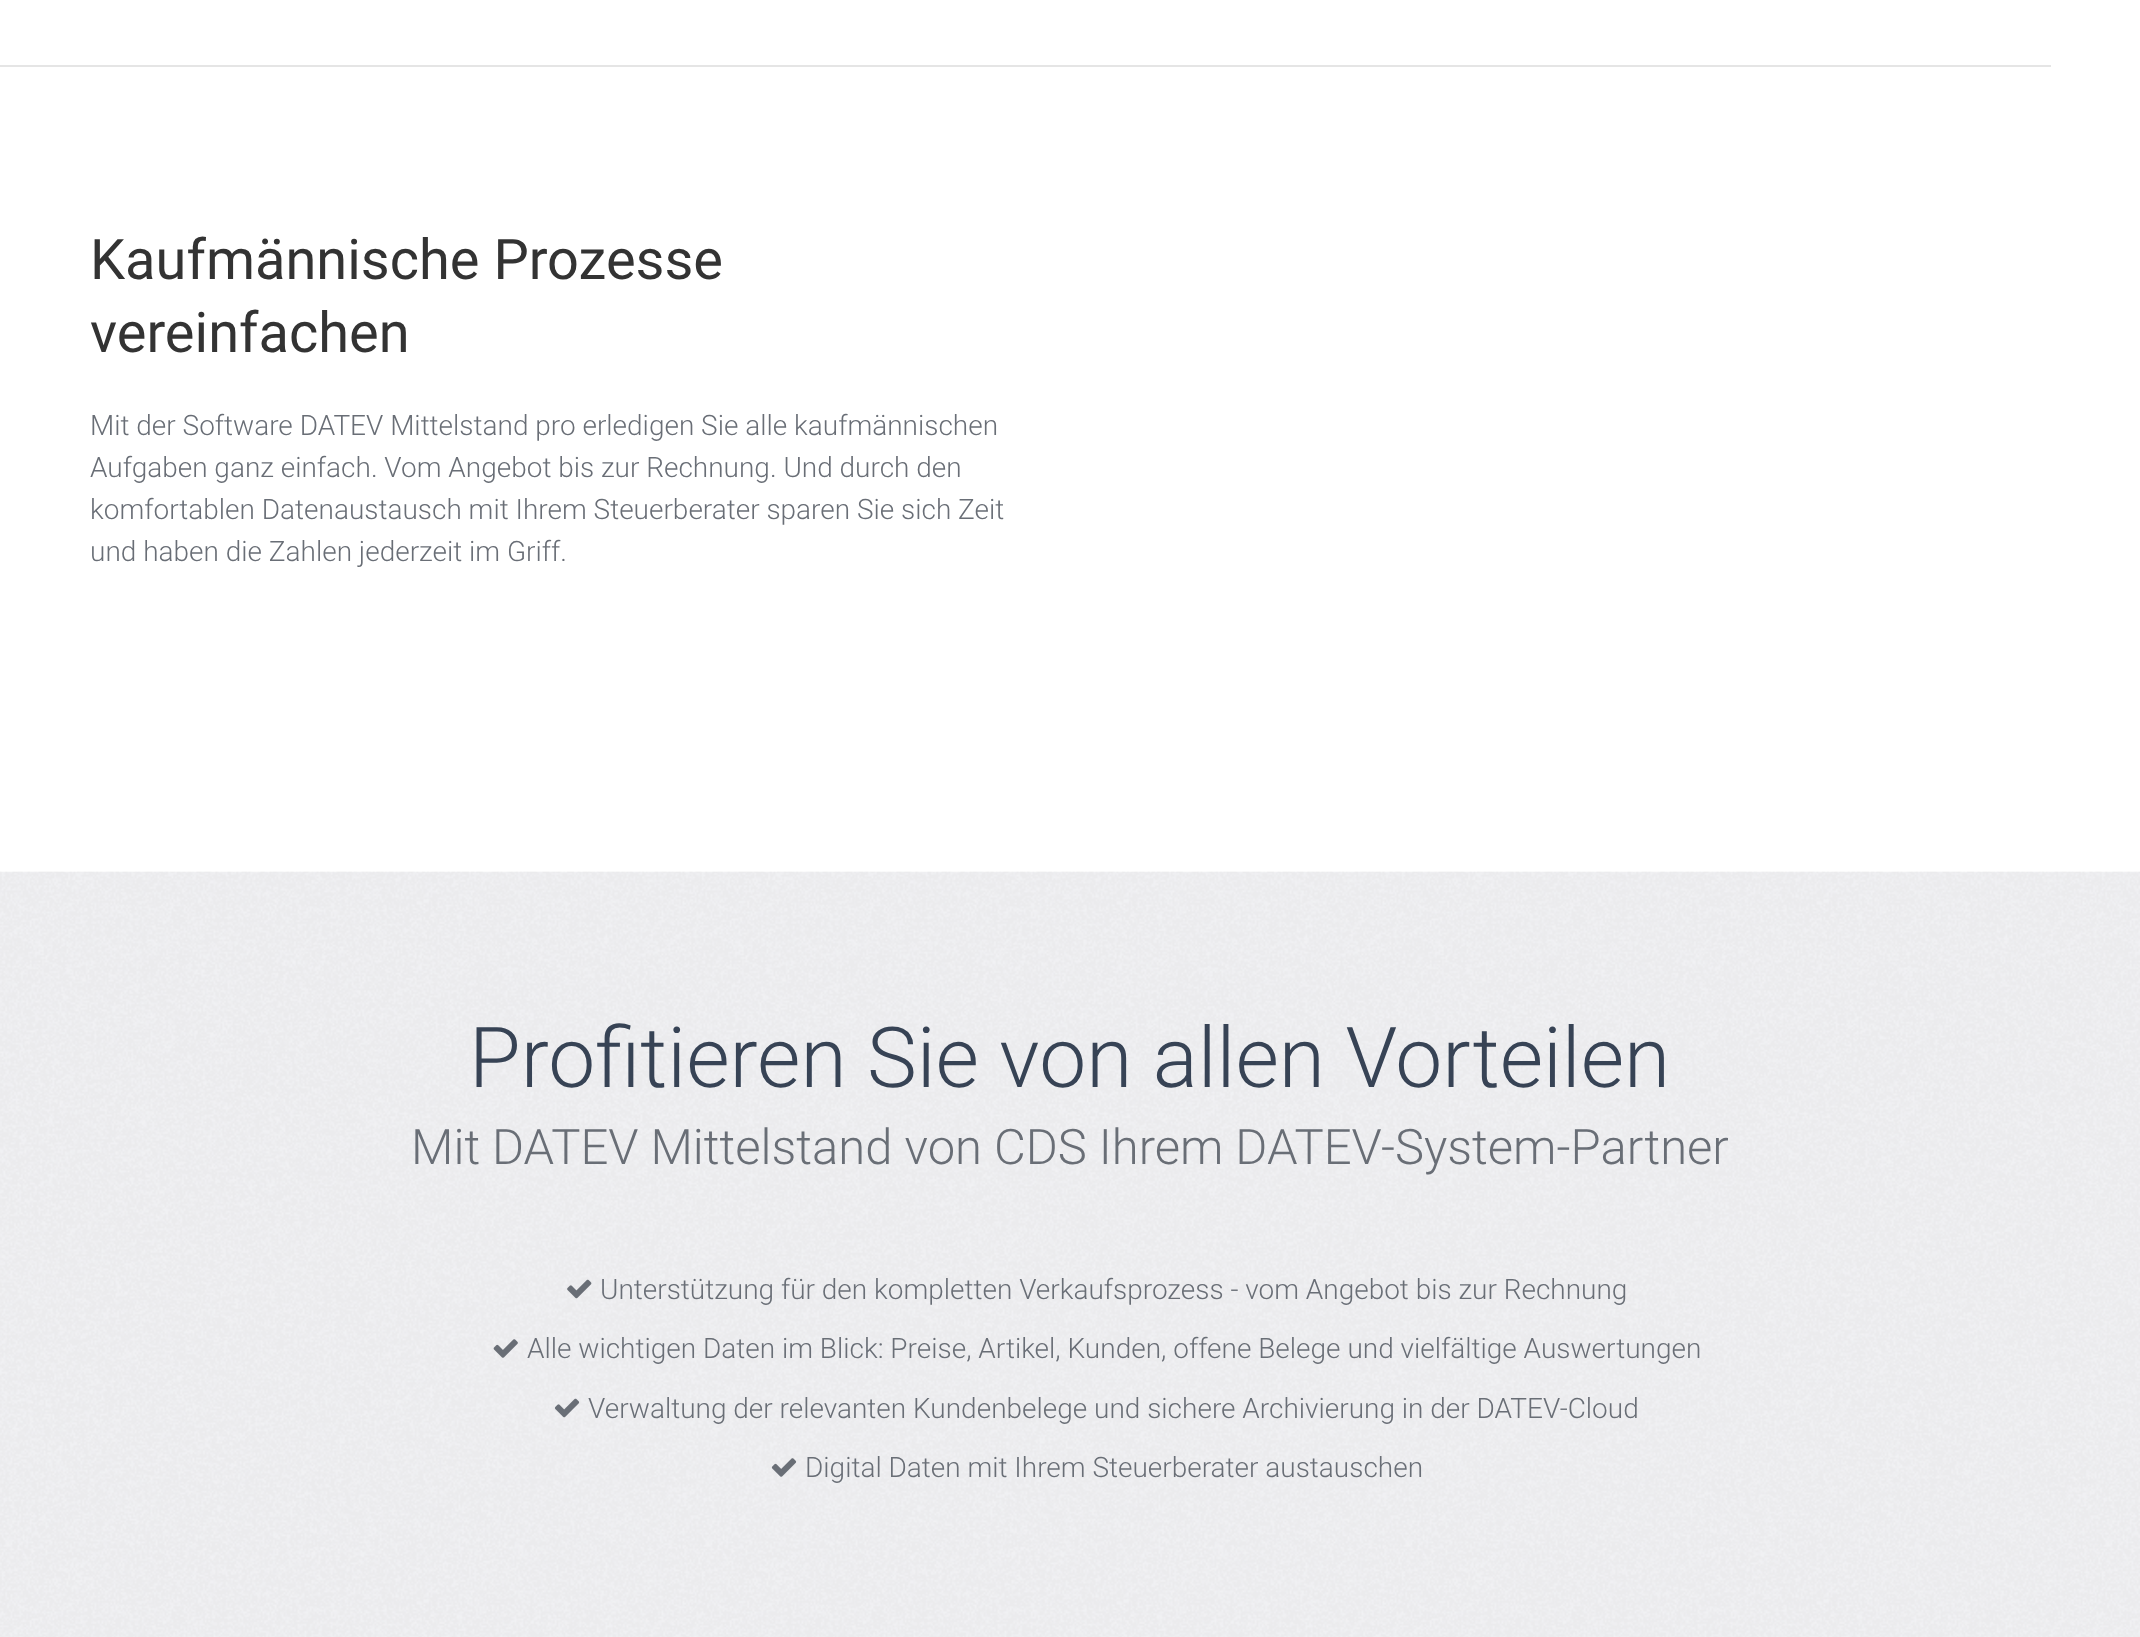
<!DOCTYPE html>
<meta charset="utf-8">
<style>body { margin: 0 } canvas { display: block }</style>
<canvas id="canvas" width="2140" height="1637"></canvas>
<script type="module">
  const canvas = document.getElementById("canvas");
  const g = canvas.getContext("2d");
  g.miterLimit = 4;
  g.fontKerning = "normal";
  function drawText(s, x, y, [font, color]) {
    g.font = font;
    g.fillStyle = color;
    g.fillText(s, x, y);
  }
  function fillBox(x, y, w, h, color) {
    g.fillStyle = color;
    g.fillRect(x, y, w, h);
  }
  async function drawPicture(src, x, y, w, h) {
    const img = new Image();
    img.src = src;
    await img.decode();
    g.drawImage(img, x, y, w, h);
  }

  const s1 = ["56px Roboto", "#333333"];
  const s2 = ["300 28px Roboto", "#696E76"];
  const s3 = ["300 84px Roboto", "#374355"];
  const s4 = ["300 49px Roboto", "#696E76"];

  fillBox(0, 0, 2140, 1637, "#F5F5F7");
  fillBox(0, 0, 2140, 872, "#FFFFFF");
  fillBox(0, 65, 2051, 2, "#E5E5E5");
  drawText("Kaufmännische Prozesse", 90, 279, s1);
  drawText("vereinfachen", 90, 352, s1);
  drawText("Mit der Software DATEV Mittelstand pro erledigen Sie alle kaufmännischen", 90, 435, s2);
  drawText("Aufgaben ganz einfach. Vom Angebot bis zur Rechnung. Und durch den", 90, 477, s2);
  drawText("komfortablen Datenaustausch mit Ihrem Steuerberater sparen Sie sich Zeit", 90, 519, s2);
  drawText("und haben die Zahlen jederzeit im Griff.", 90, 561, s2);
  await drawPicture("pic1.png", 0, 871, 2140, 766);
  drawText("Profitieren Sie von allen Vorteilen", 469, 1087, s3);
  drawText("Mit DATEV Mittelstand von CDS Ihrem DATEV-System-Partner", 411, 1164, s4);
  await drawPicture("pic2.png", 567, 1279, 25, 20);
  drawText("Unterstützung für den kompletten Verkaufsprozess - vom Angebot bis zur Rechnung", 600, 1299, s2);
  await drawPicture("pic3.png", 493, 1339, 25, 19);
  drawText("Alle wichtigen Daten im Blick: Preise, Artikel, Kunden, offene Belege und vielfältige Auswertungen", 527, 1358, s2);
  await drawPicture("pic4.png", 554, 1398, 26, 20);
  drawText("Verwaltung der relevanten Kundenbelege und sichere Archivierung in der DATEV-Cloud", 588, 1418, s2);
  await drawPicture("pic5.png", 771, 1458, 26, 19);
  drawText("Digital Daten mit Ihrem Steuerberater austauschen", 805, 1477, s2);
</script>
